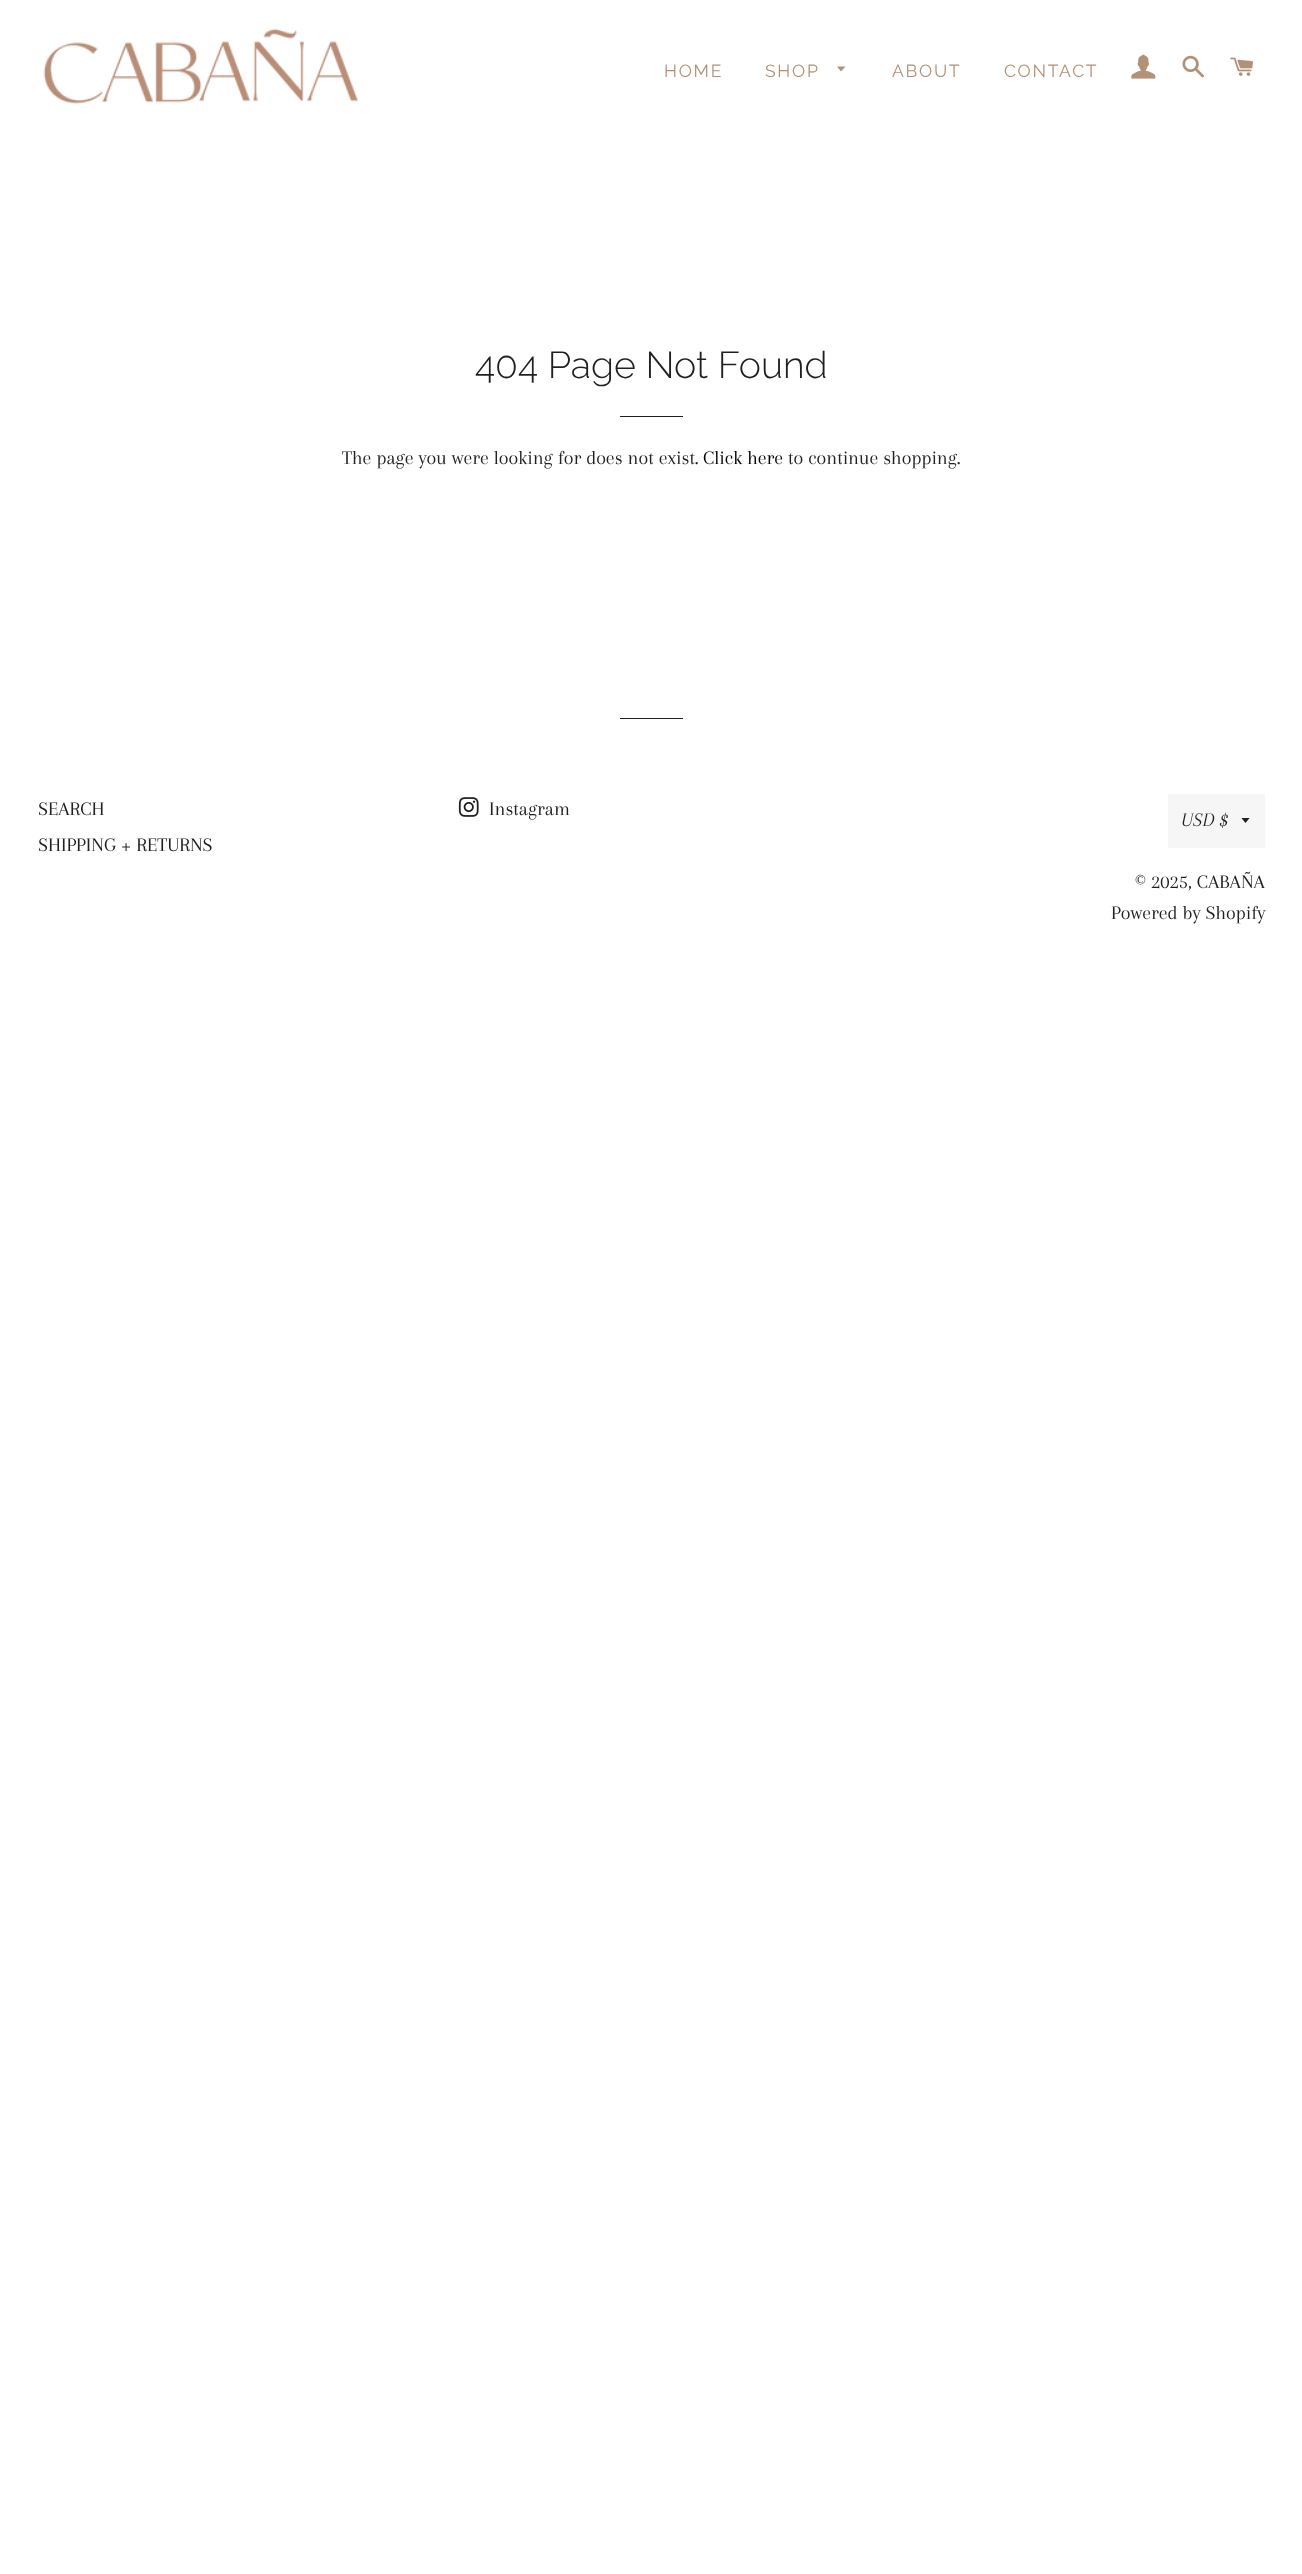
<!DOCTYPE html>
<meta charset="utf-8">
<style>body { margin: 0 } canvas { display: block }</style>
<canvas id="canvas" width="1302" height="2574"></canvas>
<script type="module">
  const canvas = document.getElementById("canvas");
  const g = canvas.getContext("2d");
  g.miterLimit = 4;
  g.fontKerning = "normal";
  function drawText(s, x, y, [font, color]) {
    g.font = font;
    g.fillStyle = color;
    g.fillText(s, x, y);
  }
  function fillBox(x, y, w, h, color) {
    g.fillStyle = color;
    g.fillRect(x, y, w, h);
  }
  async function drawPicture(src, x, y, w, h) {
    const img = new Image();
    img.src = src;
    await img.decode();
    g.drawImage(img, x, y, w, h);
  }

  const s1 = ["17.5px Raleway", "#B29179"];
  const s2 = ["300 37.5px Raleway", "#1F2021"];
  const s3 = ["20px Arapey", "#1F2021"];
  const s4 = ["20px Arapey", "#070300"];
  const s5 = ["italic 20px Arapey", "#1F2021"];

  fillBox(0, 0, 1302, 2574, "#FFFFFF");
  await drawPicture("pic1.png", 43, 28, 315, 76);
  g.letterSpacing = "1.75px";
  drawText("HOME", 664, 77, s1);
  drawText("SHOP", 765, 77, s1);
  g.beginPath();
  g.moveTo(837, 66.5);
  g.lineTo(841, 71.5);
  g.lineTo(845.5, 66.5);
  g.closePath();
  g.fill();
  drawText("ABOUT", 892, 77, s1);
  drawText("CONTACT", 1004, 77, s1);
  await drawPicture("pic2.png", 1131, 54, 25, 25);
  await drawPicture("pic3.png", 1182, 55, 22, 23);
  await drawPicture("pic4.png", 1230, 57, 23, 19);
  g.letterSpacing = "0px";
  drawText("404 Page Not Found", 475, 378, s2);
  fillBox(620, 416, 63, 1, "#1F2021");
  drawText("The page you were looking for does not exist.", 342, 464, s3);
  drawText("Click here", 703, 464, s4);
  drawText("to continue shopping.", 788, 464, s3);
  fillBox(620, 718, 63, 1, "#1F2021");
  drawText("SEARCH", 38, 815, s3);
  drawText("SHIPPING + RETURNS", 38, 851, s3);
  await drawPicture("pic5.png", 458, 797, 21, 20);
  drawText("Instagram", 489, 815, s3);
  fillBox(1168, 794, 97, 54, "#F6F6F6");
  g.save();
  g.beginPath();
  g.rect(1241, 818, 10, 6);
  g.clip();
  g.fillStyle = "#1F2021";
  g.beginPath();
  g.moveTo(1241, 817.5);
  g.lineTo(1245.5, 823);
  g.lineTo(1250, 817.5);
  g.closePath();
  g.fill();
  g.restore();
  drawText("USD $", 1181, 826, s5);
  drawText("© 2025, CABAÑA", 1135, 888, s3);
  drawText("Powered by Shopify", 1111, 919, s3);
</script>
